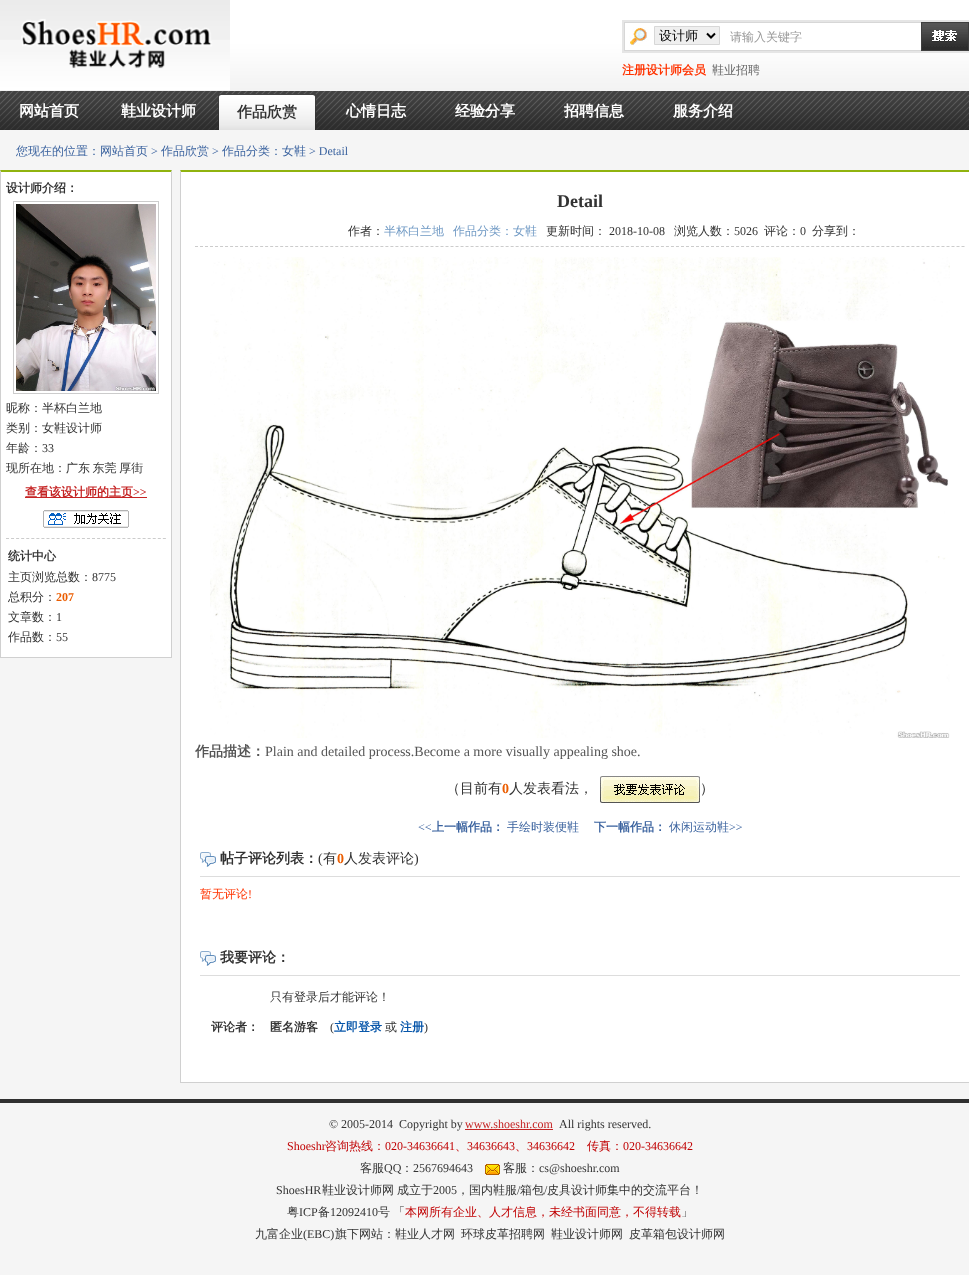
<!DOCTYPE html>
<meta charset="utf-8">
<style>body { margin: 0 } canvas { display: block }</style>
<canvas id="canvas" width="969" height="1275"></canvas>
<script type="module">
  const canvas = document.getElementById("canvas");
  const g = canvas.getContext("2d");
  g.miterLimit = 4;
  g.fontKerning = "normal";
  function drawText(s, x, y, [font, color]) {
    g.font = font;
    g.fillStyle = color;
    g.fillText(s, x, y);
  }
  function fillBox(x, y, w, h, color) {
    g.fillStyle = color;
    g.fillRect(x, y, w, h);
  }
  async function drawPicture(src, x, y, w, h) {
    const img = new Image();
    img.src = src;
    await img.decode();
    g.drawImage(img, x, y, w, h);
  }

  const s1 = ["500 13px WenQuanYi Zen Hei", "#000000"];
  const s2 = ["500 12px WenQuanYi Zen Hei", "#999999"];
  const s3 = ["bold 12px WenQuanYi Zen Hei", "#FF3300"];
  const s4 = ["500 12px WenQuanYi Zen Hei", "#666666"];
  const s5 = ["bold 15px WenQuanYi Zen Hei", "#FFFFFF"];
  const s6 = ["bold 15px WenQuanYi Zen Hei", "#333333"];
  const s7 = ["500 12px WenQuanYi Zen Hei", "#3B639F"];
  const s8 = ["12px Liberation Serif", "#3B639F"];
  const s9 = ["bold 12px WenQuanYi Zen Hei", "#333333"];
  const s10 = ["500 12px WenQuanYi Zen Hei", "#333333"];
  const s11 = ["12px Liberation Serif", "#333333"];
  const s12 = ["bold 12px WenQuanYi Zen Hei", "#C52424"];
  const s13 = ["bold 12px Liberation Serif", "#C52424"];
  const s14 = ["bold 12px Liberation Serif", "#EB5D00"];
  const s15 = ["bold 18px Liberation Serif", "#333333"];
  const s16 = ["500 12px WenQuanYi Zen Hei", "#6F99C4"];
  const s17 = ["bold 14px WenQuanYi Zen Hei", "#555555"];
  const s18 = ["14px Liberation Serif", "#555555"];
  const s19 = ["500 14px WenQuanYi Zen Hei", "#333333"];
  const s20 = ["bold 14px Liberation Serif", "#EB5D00"];
  const s21 = ["bold 12px WenQuanYi Zen Hei", "#3B639F"];
  const s22 = ["bold 14px WenQuanYi Zen Hei", "#333333"];
  const s23 = ["14px Liberation Serif", "#333333"];
  const s24 = ["500 12px WenQuanYi Zen Hei", "#FF3300"];
  const s25 = ["12px Liberation Serif", "#FF3300"];
  const s26 = ["bold 12px WenQuanYi Zen Hei", "#0756AA"];
  const s27 = ["12px Liberation Serif", "#C52424"];
  const s28 = ["12px Liberation Serif", "#C00002"];
  const s29 = ["500 12px WenQuanYi Zen Hei", "#C00002"];

  fillBox(0, 0, 969, 1275, "#F5F5F5");
  await drawPicture("pic1.png", 0, 0, 969, 130);
  await drawPicture("pic2.png", 0, 0, 230, 90);
  await drawPicture("pic3.png", 622, 20, 347, 33);
  g.fillStyle = "#EFEFEF";
  g.beginPath();
  g.rect(654.5, 26.5, 65, 18);
  g.fill();
  g.strokeStyle = "#D7D7D7";
  g.stroke();
  g.beginPath();
  g.moveTo(707, 33.5);
  g.lineTo(711, 37.5);
  g.lineTo(715, 33.5);
  g.strokeStyle = "#000000";
  g.lineWidth = 2;
  g.stroke();
  drawText("设计师", 659, 40, s1);
  drawText("请输入关键字", 730, 41, s2);
  drawText("注册设计师会员", 622, 74, s3);
  drawText("鞋业招聘", 712, 74, s4);
  drawText("网站首页", 19, 116, s5);
  drawText("鞋业设计师", 121, 116, s5);
  await drawPicture("pic4.png", 218, 94, 98, 36);
  drawText("作品欣赏", 237, 117, s6);
  drawText("心情日志", 346, 116, s5);
  drawText("经验分享", 455, 116, s5);
  drawText("招聘信息", 564, 116, s5);
  drawText("服务介绍", 673, 116, s5);
  drawText("您现在的位置：网站首页", 16, 155, s7);
  drawText(">", 151, 155, s8);
  drawText("作品欣赏", 161, 155, s7);
  drawText(">", 212, 155, s8);
  drawText("作品分类：女鞋", 222, 155, s7);
  drawText("> Detail", 309, 155, s8);
  fillBox(1, 172, 170, 485, "#FFFFFF");
  g.fillStyle = "#90B30F";
  g.beginPath();
  g.moveTo(0, 170);
  g.lineTo(172, 170);
  g.lineTo(171, 172);
  g.lineTo(1, 172);
  g.closePath();
  g.fill();
  g.fillStyle = "#D0D0D0";
  g.beginPath();
  g.moveTo(172, 170);
  g.lineTo(172, 658);
  g.lineTo(171, 657);
  g.lineTo(171, 172);
  g.closePath();
  g.fill();
  fillBox(0, 657, 172, 1, "#D0D0D0");
  g.beginPath();
  g.moveTo(0, 658);
  g.lineTo(0, 170);
  g.lineTo(1, 172);
  g.lineTo(1, 657);
  g.closePath();
  g.fill();
  g.beginPath();
  g.moveTo(6, 538.5);
  g.lineTo(166, 538.5);
  g.strokeStyle = "#CCCCCC";
  g.lineWidth = 1;
  g.setLineDash([3, 2.06]);
  g.stroke();
  drawText("设计师介绍：", 6, 192, s9);
  g.setLineDash([]);
  g.strokeRect(13.5, 201.5, 145, 192);
  await drawPicture("pic5.png", 16, 204, 140, 187);
  drawText("昵称：半杯白兰地", 6, 412, s10);
  drawText("类别：女鞋设计师", 6, 432, s10);
  drawText("年龄：", 6, 452, s10);
  drawText("33", 42, 452, s11);
  g.wordSpacing = "-1px";
  drawText("现所在地：广东 东莞 厚街", 6, 472, s10);
  fillBox(25, 497, 122, 1, "#C52424");
  g.wordSpacing = "0px";
  drawText("查看该设计师的主页", 25, 496, s12);
  drawText(">>", 133, 496, s13);
  await drawPicture("pic6.png", 43, 510, 86, 18);
  drawText("统计中心", 8, 560, s9);
  drawText("主页浏览总数：", 8, 581, s10);
  drawText("8775", 92, 581, s11);
  drawText("总积分：", 8, 601, s10);
  drawText("207", 56, 601, s14);
  drawText("文章数：", 8, 621, s10);
  drawText("1", 56, 621, s11);
  drawText("作品数：", 8, 641, s10);
  drawText("55", 56, 641, s11);
  fillBox(181, 172, 788, 910, "#FFFFFF");
  g.fillStyle = "#90B30F";
  g.beginPath();
  g.moveTo(180, 170);
  g.lineTo(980, 170);
  g.lineTo(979, 172);
  g.lineTo(181, 172);
  g.closePath();
  g.fill();
  fillBox(180, 1082, 789, 1, "#D0D0D0");
  g.beginPath();
  g.moveTo(180, 1083);
  g.lineTo(180, 170);
  g.lineTo(181, 172);
  g.lineTo(181, 1082);
  g.closePath();
  g.fill();
  g.beginPath();
  g.moveTo(195, 246.5);
  g.lineTo(965, 246.5);
  g.setLineDash([3, 2.01]);
  g.stroke();
  drawText("Detail", 557, 207, s15);
  drawText("作者：", 348, 235, s10);
  drawText("半杯白兰地", 384, 235, s16);
  drawText("作品分类：女鞋", 453, 235, s16);
  drawText("更新时间：", 546, 235, s10);
  drawText("2018-10-08", 609, 235, s11);
  drawText("浏览人数：", 674, 235, s10);
  drawText("5026", 734, 235, s11);
  drawText("评论：", 764, 235, s10);
  drawText("0", 800, 235, s11);
  drawText("分享到：", 812, 235, s10);
  await drawPicture("pic7.png", 210, 257, 740, 481);
  drawText("作品描述：", 195, 756, s17);
  drawText("Plain and detailed process.Become a more visually appealing shoe.", 265, 756, s18);
  drawText("（目前有", 446, 793, s19);
  drawText("0", 502, 793, s20);
  drawText("人发表看法，", 509, 793, s19);
  await drawPicture("pic8.png", 600, 776, 100, 27);
  drawText("）", 700, 793, s19);
  drawText("<<", 418, 831, s8);
  drawText("上一幅作品：", 432, 831, s21);
  drawText("手绘时装便鞋", 507, 831, s7);
  drawText("下一幅作品：", 594, 831, s21);
  drawText("休闲运动鞋", 669, 831, s7);
  drawText(">>", 729, 831, s8);
  await drawPicture("pic9.png", 200, 852, 16, 15);
  fillBox(200, 876, 760, 1, "#DDDDDD");
  drawText("帖子评论列表：", 220, 863, s22);
  drawText("(", 318, 863, s23);
  drawText("有", 323, 863, s19);
  drawText("0", 337, 863, s20);
  drawText("人发表评论", 344, 863, s19);
  drawText(")", 414, 863, s23);
  drawText("暂无评论", 200, 898, s24);
  drawText("!", 248, 898, s25);
  await drawPicture("pic9.png", 200, 951, 16, 15);
  fillBox(200, 975, 760, 1, "#DDDDDD");
  drawText("我要评论：", 220, 962, s22);
  drawText("只有登录后才能评论！", 270, 1001, s10);
  drawText("评论者：", 211, 1031, s9);
  drawText("匿名游客", 270, 1031, s9);
  drawText("(", 330, 1031, s11);
  drawText("立即登录", 334, 1031, s26);
  drawText("或", 385, 1031, s10);
  drawText("注册", 400, 1031, s26);
  drawText(")", 424, 1031, s11);
  fillBox(0, 1099, 969, 4, "#303030");
  drawText("© 2005-2014  Copyright by", 329, 1128, s11);
  drawText("www.shoeshr.com", 465, 1128, s27);
  fillBox(465, 1129, 88, 1, "#C52424");
  drawText("All rights reserved.", 559, 1128, s11);
  drawText("Shoeshr", 287, 1150, s28);
  drawText("咨询热线：", 325, 1150, s29);
  drawText("020-34636641", 385, 1150, s28);
  drawText("、", 455, 1150, s29);
  drawText("34636643", 467, 1150, s28);
  drawText("、", 515, 1150, s29);
  drawText("34636642", 527, 1150, s28);
  drawText("传真：", 587, 1150, s29);
  drawText("020-34636642", 623, 1150, s28);
  drawText("客服", 360, 1172, s10);
  drawText("QQ", 384, 1172, s11);
  drawText("：", 401, 1172, s10);
  drawText("2567694643", 413, 1172, s11);
  await drawPicture("pic10.png", 485, 1164, 15, 11);
  drawText("客服：", 503, 1172, s10);
  drawText("cs@shoeshr.com", 539, 1172, s11);
  drawText("ShoesHR", 276, 1194, s11);
  drawText("鞋业设计师网", 322, 1194, s10);
  drawText("成立于", 397, 1194, s10);
  drawText("2005", 433, 1194, s11);
  drawText("，国内鞋服", 457, 1194, s10);
  drawText("/", 517, 1194, s11);
  drawText("箱包", 520, 1194, s10);
  drawText("/", 544, 1194, s11);
  drawText("皮具设计师集中的交流平台！", 547, 1194, s10);
  drawText("粤", 287, 1216, s10);
  drawText("ICP", 299, 1216, s11);
  drawText("备", 318, 1216, s10);
  drawText("12092410", 330, 1216, s11);
  drawText("号", 378, 1216, s10);
  drawText("「", 393, 1216, s10);
  drawText("本网所有企业、人才信息，未经书面同意，不得转载", 405, 1216, s29);
  drawText("」", 681, 1216, s10);
  drawText("九富企业", 255, 1238, s10);
  drawText("(EBC)", 303, 1238, s11);
  drawText("旗下网站：鞋业人才网", 335, 1238, s10);
  drawText("环球皮革招聘网", 461, 1238, s10);
  drawText("鞋业设计师网", 551, 1238, s10);
  drawText("皮革箱包设计师网", 629, 1238, s10);
</script>
